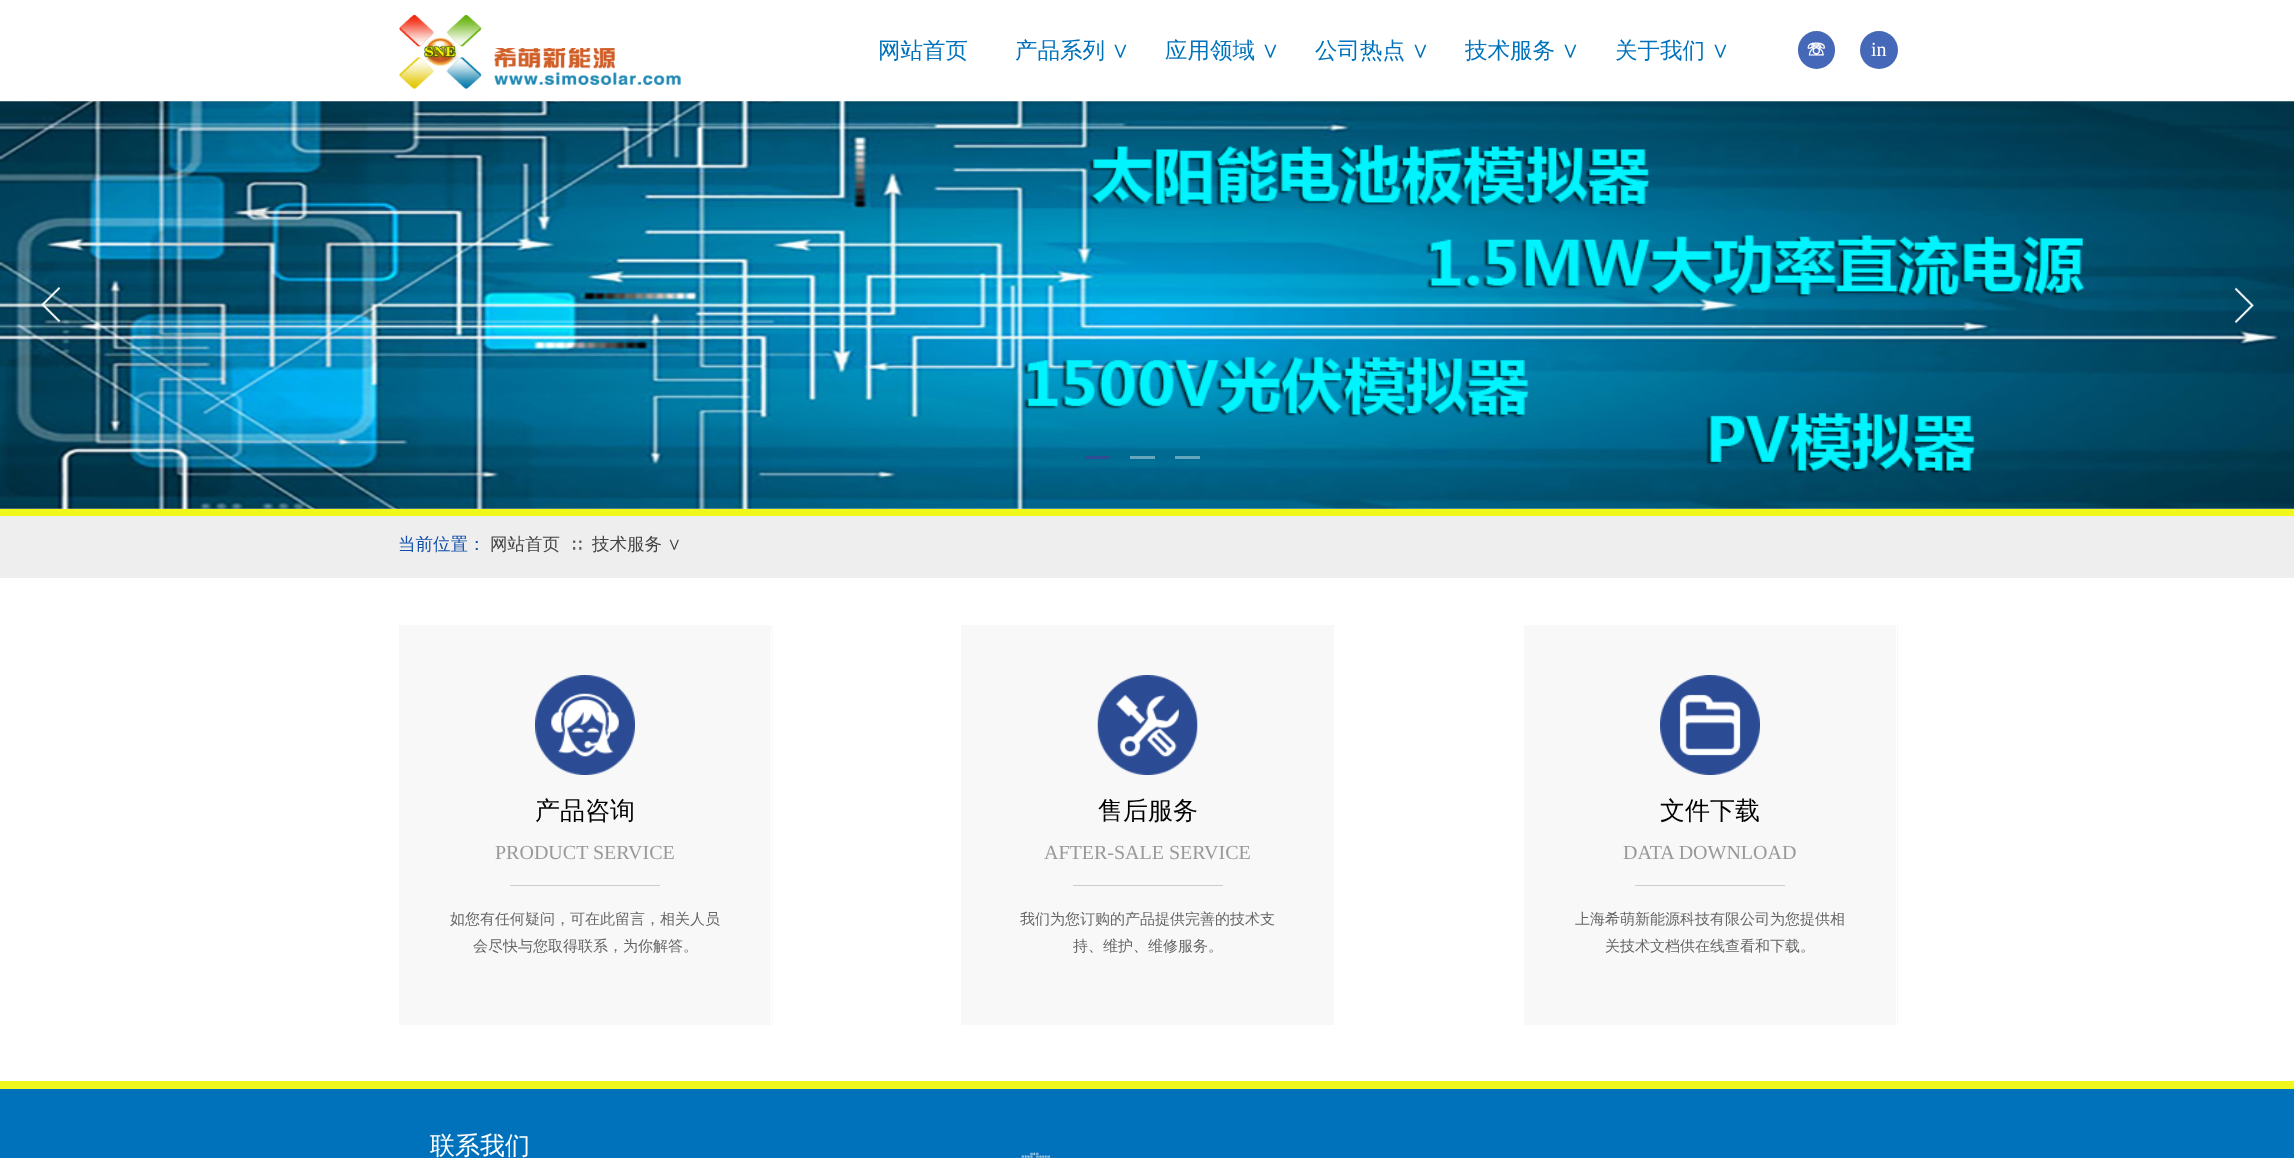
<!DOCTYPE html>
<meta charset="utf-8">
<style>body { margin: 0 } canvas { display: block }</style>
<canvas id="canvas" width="2294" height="1158"></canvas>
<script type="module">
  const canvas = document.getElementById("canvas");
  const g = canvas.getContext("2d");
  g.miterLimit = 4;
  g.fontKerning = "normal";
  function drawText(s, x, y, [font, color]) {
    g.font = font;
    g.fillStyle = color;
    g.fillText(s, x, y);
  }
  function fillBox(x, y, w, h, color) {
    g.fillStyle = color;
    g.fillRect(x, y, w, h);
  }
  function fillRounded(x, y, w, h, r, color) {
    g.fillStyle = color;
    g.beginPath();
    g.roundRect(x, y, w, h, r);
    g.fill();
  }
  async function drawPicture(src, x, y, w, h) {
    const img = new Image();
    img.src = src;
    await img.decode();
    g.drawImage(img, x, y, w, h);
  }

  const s1 = ["500 22.5px WenQuanYi Zen Hei", "#0072BC"];
  const s2 = ["bold 20px WenQuanYi Zen Hei", "#FFFFFF"];
  const s3 = ["20px Liberation Serif", "#FFFFFF"];
  const s4 = ["500 17.5px WenQuanYi Zen Hei", "#104EAA"];
  const s5 = ["500 17.5px WenQuanYi Zen Hei", "#434343"];
  const s6 = ["500 15px WenQuanYi Zen Hei", "#5A5A5A"];
  const s7 = ["500 25px WenQuanYi Zen Hei", "#000000"];
  const s8 = ["20px Liberation Serif", "#999999"];
  const s9 = ["500 15px WenQuanYi Zen Hei", "#666666"];
  const s10 = ["500 25px WenQuanYi Zen Hei", "#FFFFFF"];

  fillBox(0, 0, 2294, 1158, "#FFFFFF");
  await drawPicture("pic1.png", 399, 14, 282, 75);
  drawText("网站首页", 878, 58, s1);
  drawText("产品系列", 1015, 58, s1);
  drawText("∨", 1111, 58, s1);
  drawText("应用领域", 1165, 58, s1);
  drawText("∨", 1261, 58, s1);
  drawText("公司热点", 1315, 58, s1);
  drawText("∨", 1411, 58, s1);
  drawText("技术服务", 1465, 58, s1);
  drawText("∨", 1561, 58, s1);
  drawText("关于我们", 1615, 58, s1);
  drawText("∨", 1711, 58, s1);
  fillRounded(1798, 31, 37, 38, 18.5, "#4668B8");
  drawText("☏", 1806, 56, s2);
  g.fillStyle = "#4668B8";
  g.beginPath();
  g.arc(1879, 50, 19, 0, Math.PI * 2);
  g.fill();
  drawText("in", 1871, 56, s3);
  await drawPicture("pic2.png", 0, 101, 2294, 408);
  await drawPicture("pic3.png", 41, 286, 20, 37);
  await drawPicture("pic4.png", 2234, 287, 20, 37);
  fillBox(1085, 456, 25, 3, "#2F4D93");
  fillBox(1130, 456, 25, 3, "rgba(255, 255, 255, 0.4)");
  fillBox(1175, 456, 25, 3, "#66A6BD");
  fillBox(0, 509, 2294, 7, "#F0F81B");
  fillBox(0, 516, 2294, 62, "#EEEEEE");
  drawText("当前位置：", 398, 550, s4);
  drawText("网站首页", 490, 550, s5);
  drawText("∷", 570, 550, s6);
  drawText("技术服务", 592, 550, s5);
  drawText("∨", 667, 550, s5);
  fillBox(399, 625, 374, 400, "#F8F8F8");
  fillBox(771, 625, 1, 400, "#FFFFFF");
  await drawPicture("pic5.png", 535, 675, 100, 100);
  drawText("产品咨询", 535, 819, s7);
  drawText("PRODUCT SERVICE", 495, 859, s8);
  fillBox(510, 885, 150, 1, "#CCCCCC");
  drawText("如您有任何疑问，可在此留言，相关人员", 450, 924, s9);
  drawText("会尽快与您取得联系，为你解答。", 473, 951, s9);
  fillBox(961, 625, 373, 400, "#F8F8F8");
  await drawPicture("pic6.png", 1097, 675, 101, 100);
  drawText("售后服务", 1098, 819, s7);
  drawText("AFTER-SALE SERVICE", 1044, 859, s8);
  fillBox(1073, 885, 150, 1, "#CCCCCC");
  drawText("我们为您订购的产品提供完善的技术支", 1020, 924, s9);
  drawText("持、维护、维修服务。", 1073, 951, s9);
  fillBox(1524, 625, 374, 400, "#F8F8F8");
  fillBox(1896, 625, 1, 400, "#FFFFFF");
  await drawPicture("pic7.png", 1660, 675, 100, 100);
  drawText("文件下载", 1660, 819, s7);
  drawText("DATA DOWNLOAD", 1623, 859, s8);
  fillBox(1635, 885, 150, 1, "#CCCCCC");
  drawText("上海希萌新能源科技有限公司为您提供相", 1575, 924, s9);
  drawText("关技术文档供在线查看和下载。", 1605, 951, s9);
  fillBox(0, 1089, 2294, 69, "#0072BC");
  fillBox(0, 1081, 2294, 8, "#F0F81B");
  drawText("联系我们", 430, 1154, s10);
  await drawPicture("pic8.png", 1016, 1152, 40, 6);
</script>
